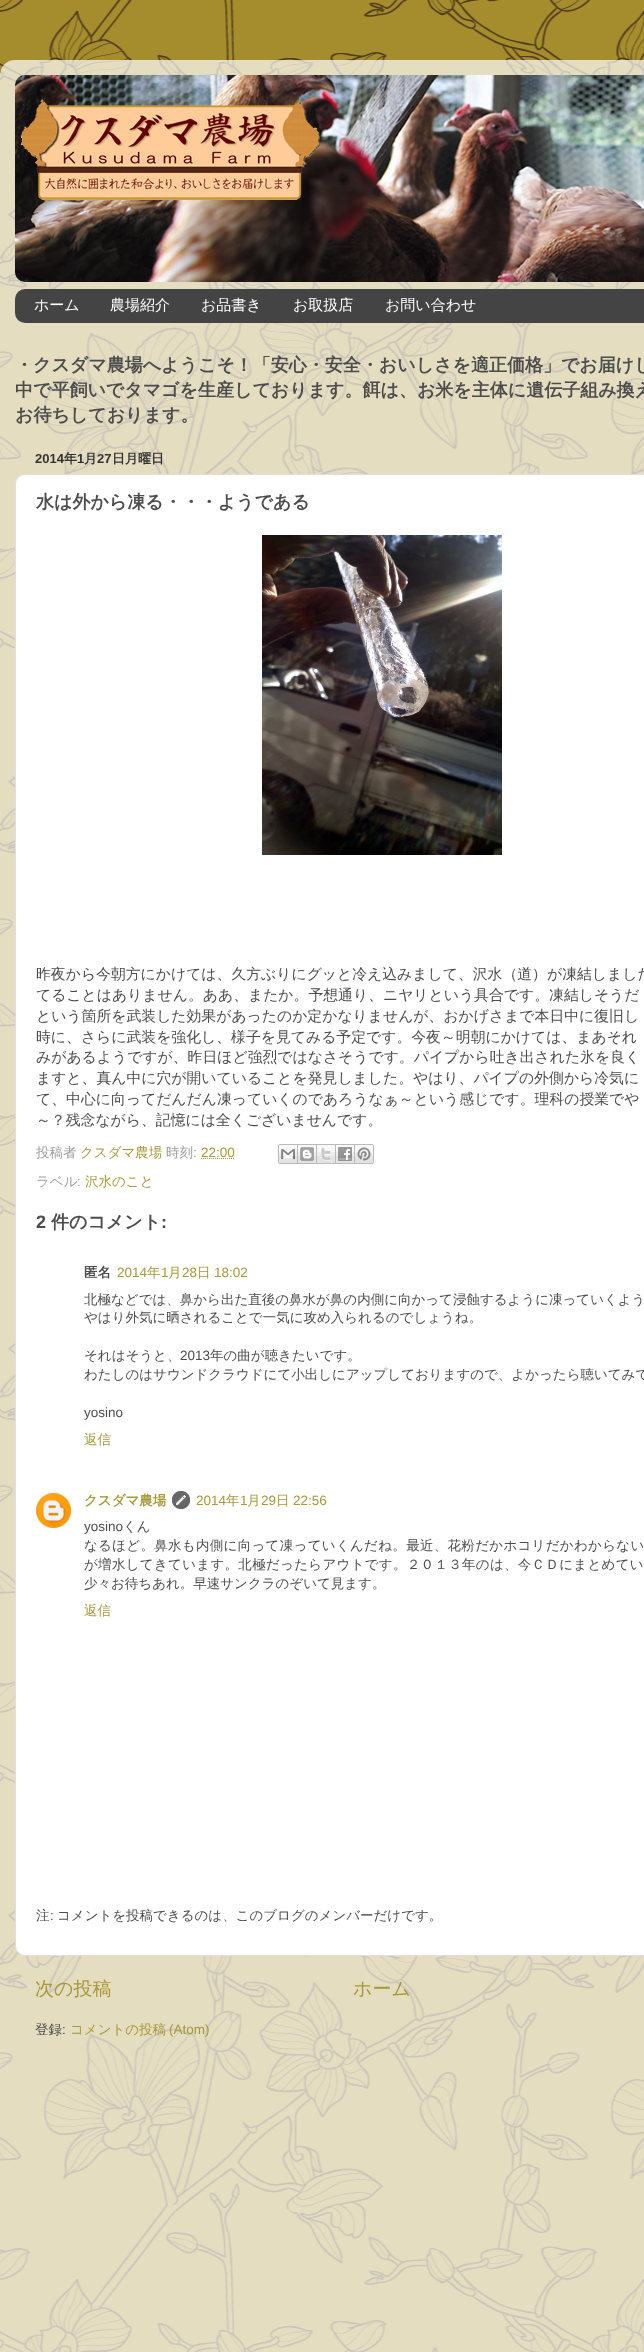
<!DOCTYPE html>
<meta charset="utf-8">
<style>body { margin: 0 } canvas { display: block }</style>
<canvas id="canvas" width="644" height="2352"></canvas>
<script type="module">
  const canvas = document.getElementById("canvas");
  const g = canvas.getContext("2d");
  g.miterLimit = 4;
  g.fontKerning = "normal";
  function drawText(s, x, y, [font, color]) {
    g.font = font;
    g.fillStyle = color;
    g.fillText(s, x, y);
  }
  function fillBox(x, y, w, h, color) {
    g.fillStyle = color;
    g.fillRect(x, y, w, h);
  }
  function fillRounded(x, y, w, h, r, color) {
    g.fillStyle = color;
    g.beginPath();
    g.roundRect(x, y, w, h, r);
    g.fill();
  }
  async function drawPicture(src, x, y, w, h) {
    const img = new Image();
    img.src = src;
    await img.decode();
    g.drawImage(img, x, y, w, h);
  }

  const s1 = ["500 15px WenQuanYi Zen Hei", "#FFFFFF"];
  const s2 = ["bold 18px WenQuanYi Zen Hei", "#4C4C4C"];
  const s3 = ["bold 13px Liberation Sans", "#333333"];
  const s4 = ["bold 13px WenQuanYi Zen Hei", "#333333"];
  const s5 = ["500 14.85px WenQuanYi Zen Hei", "#4C4C4C"];
  const s6 = ["500 13.5px WenQuanYi Zen Hei", "#9D9D9D"];
  const s7 = ["500 13.5px WenQuanYi Zen Hei", "#A79838"];
  const s8 = ["13.5px Liberation Sans", "#9D9D9D"];
  const s9 = ["13.5px Liberation Sans", "#A79838"];
  const s10 = ["bold 18px Liberation Sans", "#4C4C4C"];
  const s11 = ["bold 13.5px WenQuanYi Zen Hei", "#4C4C4C"];
  const s12 = ["500 13.5px WenQuanYi Zen Hei", "#4C4C4C"];
  const s13 = ["13.5px Liberation Sans", "#4C4C4C"];
  const s14 = ["bold 13.5px WenQuanYi Zen Hei", "#A79838"];
  const s15 = ["500 19px WenQuanYi Zen Hei", "#A79838"];

  fillBox(0, 0, 644, 2352, "#A58D2D");
  await drawPicture("pic1.png", 0, 0, 644, 2352);
  await drawPicture("pic2.png", 0, 60, 644, 2292);
  fillRounded(15, 75, 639, 207, 10, "#444444");
  await drawPicture("pic3.png", 15, 75, 10, 10);
  await drawPicture("pic4.png", 15, 75, 629, 207);
  fillRounded(15, 289, 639, 34, 10, "#444444");
  drawText("ホーム", 34, 310, s1);
  drawText("農場紹介", 110, 310, s1);
  drawText("お品書き", 201, 310, s1);
  drawText("お取扱店", 293, 310, s1);
  drawText("お問い合わせ", 385, 310, s1);
  drawText("・クスダマ農場へようこそ！「安心・安全・おいしさを適正価格」でお届けし", 15, 371, s2);
  drawText("中で平飼いでタマゴを生産しております。餌は、お米を主体に遺伝子組み換え", 15, 396, s2);
  drawText("お待ちしております。", 15, 421, s2);
  drawText("2014", 35, 463, s3);
  drawText("年", 64, 463, s4);
  drawText("1", 77, 463, s3);
  drawText("月", 84, 463, s4);
  drawText("27", 97, 463, s3);
  drawText("日月曜日", 112, 463, s4);
  g.fillStyle = "#FFFFFF";
  g.beginPath();
  g.roundRect(15.5, 474.5, 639, 1481, 9.5);
  g.fill();
  g.strokeStyle = "#DFDFDF";
  g.stroke();
  drawText("水は外から凍る・・・ようである", 36, 508, s2);
  await drawPicture("pic5.png", 262, 535, 240, 320);
  drawText("昨夜から今朝方にかけては、久方ぶりにグッと冷え込みまして、沢水（道）が凍結しました", 36, 979, s5);
  drawText("てることはありません。ああ、またか。予想通り、ニヤリという具合です。凍結しそうだ", 36, 1000, s5);
  drawText("という箇所を武装した効果があったのか定かなりませんが、おかげさまで本日中に復旧し", 36, 1021, s5);
  drawText("時に、さらに武装を強化し、様子を見てみる予定です。今夜～明朝にかけては、まあそれ", 36, 1042, s5);
  drawText("みがあるようですが、昨日ほど強烈ではなさそうです。パイプから吐き出された氷を良く", 36, 1062, s5);
  drawText("ますと、真ん中に穴が開いていることを発見しました。やはり、パイプの外側から冷気に", 36, 1083, s5);
  drawText("て、中心に向ってだんだん凍っていくのであろうなぁ～という感じです。理科の授業でや", 36, 1104, s5);
  drawText("～？残念ながら、記憶には全くございませんです。", 36, 1125, s5);
  drawText("投稿者", 36, 1157, s6);
  drawText("クスダマ農場", 80, 1157, s7);
  drawText("時刻", 166, 1157, s6);
  drawText(":", 193, 1157, s8);
  drawText("22:00", 201, 1157, s9);
  g.beginPath();
  g.moveTo(201, 1158.5);
  g.lineTo(234.5, 1158.5);
  g.strokeStyle = "#A79838";
  g.setLineDash([1, 1]);
  g.stroke();
  await drawPicture("pic6.png", 278, 1144, 20, 20);
  await drawPicture("pic7.png", 298, 1144, 19, 20);
  await drawPicture("pic8.png", 317, 1144, 19, 20);
  await drawPicture("pic9.png", 336, 1144, 19, 20);
  await drawPicture("pic10.png", 355, 1144, 19, 20);
  drawText("ラベル", 36, 1186, s6);
  drawText(":", 77, 1186, s8);
  drawText("沢水のこと", 85, 1186, s7);
  drawText("2", 36, 1228, s10);
  drawText("件のコメント", 51, 1228, s2);
  drawText(":", 161, 1228, s10);
  drawText("匿名", 84, 1277, s11);
  drawText("2014", 117, 1277, s9);
  drawText("年", 147, 1277, s7);
  drawText("1", 161, 1277, s9);
  drawText("月", 168, 1277, s7);
  drawText("28", 182, 1277, s9);
  drawText("日", 197, 1277, s7);
  drawText("18:02", 214, 1277, s9);
  drawText("北極などでは、鼻から出た直後の鼻水が鼻の内側に向かって浸蝕するように凍っていくよう", 84, 1304, s12);
  drawText("やはり外気に晒されることで一気に攻め入られるのでしょうね。", 84, 1322, s12);
  drawText("それはそうと、", 84, 1360, s12);
  drawText("2013", 180, 1360, s13);
  drawText("年の曲が聴きたいです。", 210, 1360, s12);
  drawText("わたしのはサウンドクラウドにて小出しにアップしておりますので、よかったら聴いてみて", 84, 1379, s12);
  drawText("yosino", 84, 1417, s13);
  drawText("返信", 84, 1444, s7);
  await drawPicture("pic11.png", 36, 1493, 35, 35);
  drawText("クスダマ農場", 84, 1505, s14);
  await drawPicture("pic12.png", 172, 1491, 18, 18);
  drawText("2014", 196, 1505, s9);
  drawText("年", 226, 1505, s7);
  drawText("1", 240, 1505, s9);
  drawText("月", 247, 1505, s7);
  drawText("29", 261, 1505, s9);
  drawText("日", 276, 1505, s7);
  drawText("22:56", 293, 1505, s9);
  drawText("yosino", 84, 1531, s13);
  drawText("くん", 123, 1531, s12);
  g.letterSpacing = "0.3px";
  drawText("なるほど。鼻水も内側に向って凍っていくんだね。最近、花粉だかホコリだかわからない", 84, 1550, s12);
  drawText("が増水してきています。北極だったらアウトです。２０１３年のは、今ＣＤにまとめてい", 84, 1569, s12);
  g.letterSpacing = "0px";
  drawText("少々お待ちあれ。早速サンクラのぞいて見ます。", 84, 1588, s12);
  drawText("返信", 84, 1615, s7);
  drawText("注", 36, 1920, s12);
  drawText(":", 50, 1920, s13);
  drawText("コメントを投稿できるのは、このブログのメンバーだけです。", 57, 1920, s12);
  drawText("次の投稿", 35, 1995, s15);
  drawText("ホーム", 353, 1995, s15);
  drawText("登録", 35, 2034, s12);
  drawText(":", 62, 2034, s13);
  drawText("コメントの投稿", 70, 2034, s7);
  drawText("(Atom)", 169, 2034, s9);
</script>
